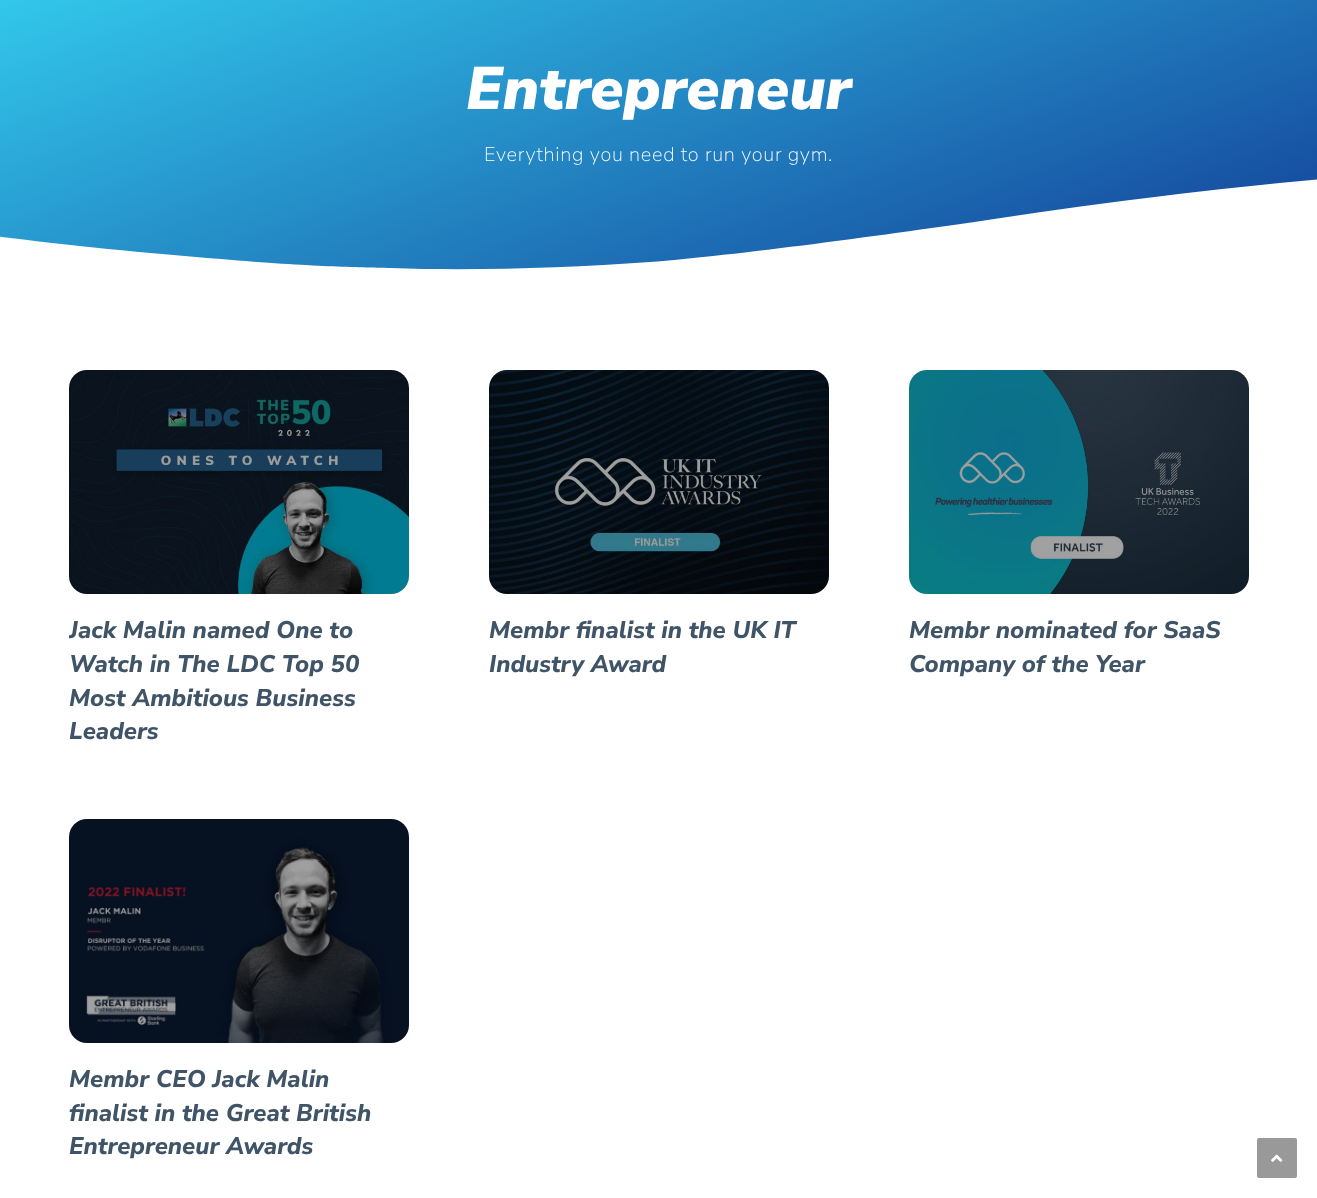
<!DOCTYPE html>
<meta charset="utf-8">
<style>body { margin: 0 } canvas { display: block }</style>
<canvas id="canvas" width="1317" height="1198"></canvas>
<script type="module">
  const canvas = document.getElementById("canvas");
  const g = canvas.getContext("2d");
  g.miterLimit = 4;
  g.fontKerning = "normal";
  function drawText(s, x, y, [font, color]) {
    g.font = font;
    g.fillStyle = color;
    g.fillText(s, x, y);
  }
  function fillBox(x, y, w, h, color) {
    g.fillStyle = color;
    g.fillRect(x, y, w, h);
  }
  function fillRounded(x, y, w, h, r, color) {
    g.fillStyle = color;
    g.beginPath();
    g.roundRect(x, y, w, h, r);
    g.fill();
  }
  async function drawPicture(src, x, y, w, h) {
    const img = new Image();
    img.src = src;
    await img.decode();
    g.drawImage(img, x, y, w, h);
  }
  let gradient;

  const s1 = ["italic 900 60px Nunito Sans", "#FFFFFF"];
  const s2 = ["200 20px Nunito Sans", "#FFFFFF"];
  const s3 = ["italic 800 24px Nunito Sans", "#405467"];

  fillBox(0, 0, 1317, 1198, "#FFFFFF");
  gradient = g.createLinearGradient(512, -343, 805, 461);
  gradient.addColorStop(0, "#39E4FC");
  gradient.addColorStop(0.89, "#1750A2");
  g.fillStyle = gradient;
  g.fillRect(0, 0, 1317, 270);
  drawText("Entrepreneur", 466, 109, s1);
  g.letterSpacing = "0.7px";
  drawText("Everything you need to run your gym.", 484, 161, s2);
  g.beginPath();
  g.moveTo(391, 268);
  g.bezierCurveTo(469, 271, 568, 268, 650, 262);
  g.bezierCurveTo(731, 256, 893, 234, 994, 219);
  g.bezierCurveTo(1254, 180, 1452, 166, 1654, 159);
  g.bezierCurveTo(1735, 157, 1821, 155, 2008, 162);
  g.bezierCurveTo(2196, 170, 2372, 193, 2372, 193);
  g.lineTo(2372, 276);
  g.lineTo(-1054, 276);
  g.lineTo(-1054, 240);
  g.bezierCurveTo(-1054, 240, -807, 201, -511, 203);
  g.bezierCurveTo(-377, 204, -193, 211, -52, 230);
  g.bezierCurveTo(20, 240, 127, 252, 221, 259);
  g.bezierCurveTo(314, 267, 356, 267, 391, 268);
  g.closePath();
  g.fill();
  await drawPicture("pic1.png", 69, 370, 340, 224);
  g.save();
  g.beginPath();
  g.rect(69, 370, 340, 379);
  g.clip();
  g.letterSpacing = "0px";
  drawText("Jack Malin named One to", 69, 638, s3);
  g.restore();
  g.letterSpacing = "0px";
  drawText("Watch in The LDC Top 50", 69, 672, s3);
  drawText("Most Ambitious Business", 69, 706, s3);
  drawText("Leaders", 69, 739, s3);
  await drawPicture("pic2.png", 489, 370, 340, 224);
  drawText("Membr finalist in the UK IT", 489, 638, s3);
  drawText("Industry Award", 489, 672, s3);
  await drawPicture("pic3.png", 909, 370, 340, 224);
  drawText("Membr nominated for SaaS", 909, 638, s3);
  drawText("Company of the Year", 909, 672, s3);
  await drawPicture("pic4.png", 69, 819, 340, 224);
  drawText("Membr CEO Jack Malin", 69, 1087, s3);
  drawText("finalist in the Great British", 69, 1121, s3);
  drawText("Entrepreneur Awards", 69, 1154, s3);
  fillRounded(1257, 1138, 40, 40, 2, "#999999");
  await drawPicture("pic5.png", 1271, 1154, 12, 8);
</script>
